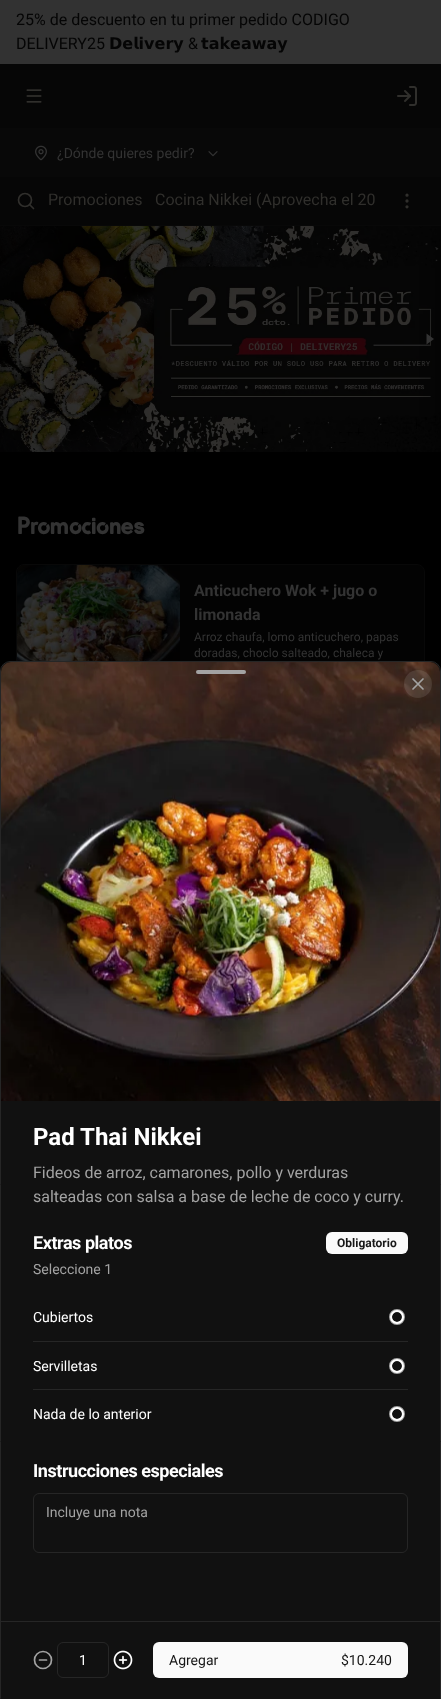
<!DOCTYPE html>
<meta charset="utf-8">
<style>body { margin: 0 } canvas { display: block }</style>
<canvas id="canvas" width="441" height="1699"></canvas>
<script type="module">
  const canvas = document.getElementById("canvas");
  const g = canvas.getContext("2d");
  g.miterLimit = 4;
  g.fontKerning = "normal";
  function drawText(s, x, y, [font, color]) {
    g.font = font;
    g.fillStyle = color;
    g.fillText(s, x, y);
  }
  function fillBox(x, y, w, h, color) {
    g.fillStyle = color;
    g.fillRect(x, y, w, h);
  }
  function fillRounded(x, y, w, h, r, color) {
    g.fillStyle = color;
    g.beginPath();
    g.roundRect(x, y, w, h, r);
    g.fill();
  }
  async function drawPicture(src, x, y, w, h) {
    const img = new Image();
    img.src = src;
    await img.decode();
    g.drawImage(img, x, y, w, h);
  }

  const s1 = ["16px Roboto", "#050505"];
  const s2 = ["bold 16px DejaVu Sans", "#050505"];
  const s3 = ["14px Roboto", "#333333"];
  const s4 = ["16px Roboto", "#302F2C"];
  const s5 = ["bold 24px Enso", "#333333"];
  const s6 = ["bold 16px Roboto", "#333333"];
  const s7 = ["12px Roboto", "#333333"];
  const s8 = ["bold 24px Roboto", "#FFFFFF"];
  const s9 = ["16px Roboto", "#A3A3A3"];
  const s10 = ["bold 18px Roboto", "#FFFFFF"];
  const s11 = ["bold 12px Roboto", "#171717"];
  const s12 = ["14px Roboto", "#A3A3A3"];
  const s13 = ["14px Roboto", "#FFFFFF"];
  const s14 = ["14px Roboto", "#171717"];

  fillBox(0, 0, 441, 1699, "#000000");
  fillBox(0, 0, 441, 64, "#323232");
  drawText("25% de descuento en tu primer pedido CODIGO", 16, 25, s1);
  drawText("DELIVERY25", 16, 49, s1);
  drawText("𝗗𝗲𝗹𝗶𝘃𝗲𝗿𝘆", 109, 49, s2);
  drawText("&", 188, 49, s1);
  drawText("𝘁𝗮𝗸𝗲𝗮𝘄𝗮𝘆", 201, 49, s2);
  fillBox(0, 64, 441, 64, "#060606");
  fillBox(0, 128, 441, 49, "#080808");
  await drawPicture("pic1.png", 26, 89, 16, 14);
  await drawPicture("pic2.png", 397, 86, 20, 20);
  await drawPicture("pic3.png", 35, 145, 12, 16);
  drawText("¿Dónde quieres pedir?", 57, 158, s3);
  await drawPicture("pic4.png", 208, 151, 10, 6);
  fillBox(0, 177, 441, 48, "#060606");
  fillBox(0, 225, 441, 1, "#080808");
  g.beginPath();
  g.moveTo(33.5, 208.5);
  g.lineTo(30, 205);
  g.strokeStyle = "#302F2C";
  g.lineWidth = 1.7;
  g.lineCap = "round";
  g.lineJoin = "round";
  g.stroke();
  g.beginPath();
  g.arc(25, 200, 6.5, 0, Math.PI * 2);
  g.stroke();
  drawText("Promociones", 48, 205, s4);
  drawText("Cocina Nikkei (Aprovecha el 20", 155, 205, s4);
  g.beginPath();
  g.arc(407, 201, 0.8, 0, Math.PI * 2);
  g.stroke();
  g.beginPath();
  g.arc(407, 195.2, 0.8, 0, Math.PI * 2);
  g.stroke();
  g.beginPath();
  g.arc(407, 206.8, 0.8, 0, Math.PI * 2);
  g.stroke();
  await drawPicture("pic5.png", 0, 226, 441, 226);
  g.fillStyle = "#333333";
  g.beginPath();
  g.moveTo(14.5, 333.5);
  g.lineTo(14.5, 344.5);
  g.lineTo(7, 339);
  g.closePath();
  g.fill();
  g.beginPath();
  g.moveTo(426.5, 344.5);
  g.lineTo(426.5, 333.5);
  g.lineTo(434, 339);
  g.closePath();
  g.fill();
  g.letterSpacing = "-0.6px";
  drawText("Promociones", 16, 534, s5);
  g.fillStyle = "#030303";
  g.beginPath();
  g.roundRect(16.5, 564.5, 408, 159, 7.5);
  g.fill();
  g.strokeStyle = "#080808";
  g.lineWidth = 1;
  g.lineJoin = "miter";
  g.stroke();
  await drawPicture("pic6.png", 17, 565, 163, 96);
  g.letterSpacing = "0px";
  drawText("Anticuchero Wok + jugo o", 194, 596, s6);
  drawText("limonada", 194, 620, s6);
  drawText("Arroz chaufa, lomo anticuchero, papas", 194, 641, s7);
  drawText("doradas, choclo salteado, chaleca y", 194, 657, s7);
  g.fillStyle = "#111111";
  g.beginPath();
  g.roundRect(0.5, 661.5, 440, 1037, [9.5, 9.5, 0, 0]);
  g.fill();
  g.strokeStyle = "#262626";
  g.stroke();
  g.beginPath();
  g.roundRect(1, 662, 439, 1036, [10, 10, 0, 0]);
  g.fill();
  await drawPicture("pic7.png", 1, 662, 439, 439);
  fillRounded(196, 670, 50, 4, 2, "#A3A3A3");
  g.fillStyle = "rgba(255, 255, 255, 0.1)";
  g.beginPath();
  g.arc(418, 684, 14, 0, Math.PI * 2);
  g.fill();
  g.beginPath();
  g.moveTo(423, 679);
  g.lineTo(413, 689);
  g.moveTo(413, 679);
  g.lineTo(423, 689);
  g.strokeStyle = "#A3A3A3";
  g.lineWidth = 1.7;
  g.lineJoin = "round";
  g.stroke();
  drawText("Pad Thai Nikkei", 33, 1145, s8);
  drawText("Fideos de arroz, camarones, pollo y verduras", 33, 1178, s9);
  drawText("salteadas con salsa a base de leche de coco y curry.", 33, 1202, s9);
  g.letterSpacing = "-0.45px";
  drawText("Extras platos", 33, 1249, s10);
  fillRounded(326, 1232, 82, 22, 6, "#FAFAFA");
  g.letterSpacing = "0px";
  drawText("Obligatorio", 337, 1247, s11);
  drawText("Seleccione 1", 33, 1274, s12);
  drawText("Cubiertos", 33, 1322, s13);
  g.beginPath();
  g.arc(397, 1317, 6.5, 0, Math.PI * 2);
  g.lineWidth = 3;
  g.stroke();
  g.beginPath();
  g.arc(397, 1317, 6, 0, Math.PI * 2);
  g.strokeStyle = "#FFFFFF";
  g.lineWidth = 2;
  g.stroke();
  fillBox(33, 1341, 375, 1, "#262626");
  drawText("Servilletas", 33, 1371, s13);
  g.beginPath();
  g.arc(397, 1366, 6.5, 0, Math.PI * 2);
  g.strokeStyle = "#A3A3A3";
  g.lineWidth = 3;
  g.stroke();
  g.beginPath();
  g.arc(397, 1366, 6, 0, Math.PI * 2);
  g.strokeStyle = "#FFFFFF";
  g.lineWidth = 2;
  g.stroke();
  fillBox(33, 1389, 375, 1, "#262626");
  drawText("Nada de lo anterior", 33, 1419, s13);
  g.beginPath();
  g.arc(397, 1414, 6.5, 0, Math.PI * 2);
  g.strokeStyle = "#A3A3A3";
  g.lineWidth = 3;
  g.stroke();
  g.beginPath();
  g.arc(397, 1414, 6, 0, Math.PI * 2);
  g.strokeStyle = "#FFFFFF";
  g.lineWidth = 2;
  g.stroke();
  g.letterSpacing = "-0.45px";
  drawText("Instrucciones especiales", 33, 1477, s10);
  g.beginPath();
  g.roundRect(33.5, 1493.5, 374, 59, 5.5);
  g.strokeStyle = "#262626";
  g.lineWidth = 1;
  g.lineJoin = "miter";
  g.stroke();
  g.letterSpacing = "0px";
  drawText("Incluye una nota", 46, 1517, s12);
  fillBox(1, 1621, 439, 1, "#262626");
  g.beginPath();
  g.arc(43, 1660, 8.5, 0, Math.PI * 2);
  g.strokeStyle = "#A3A3A3";
  g.lineWidth = 1.7;
  g.stroke();
  g.beginPath();
  g.moveTo(39.5, 1660);
  g.lineTo(46.5, 1660);
  g.lineJoin = "round";
  g.stroke();
  g.beginPath();
  g.roundRect(57.5, 1642.5, 51, 35, 5.5);
  g.strokeStyle = "#262626";
  g.lineWidth = 1;
  g.lineJoin = "miter";
  g.stroke();
  drawText("1", 79, 1665, s13);
  await drawPicture("pic8.png", 113, 1650, 20, 20);
  fillRounded(153, 1642, 255, 36, 6, "#FAFAFA");
  drawText("Agregar", 169, 1665, s14);
  drawText("$10.240", 341, 1665, s14);
  fillBox(1, 1698, 439, 1, "#111111");
</script>
